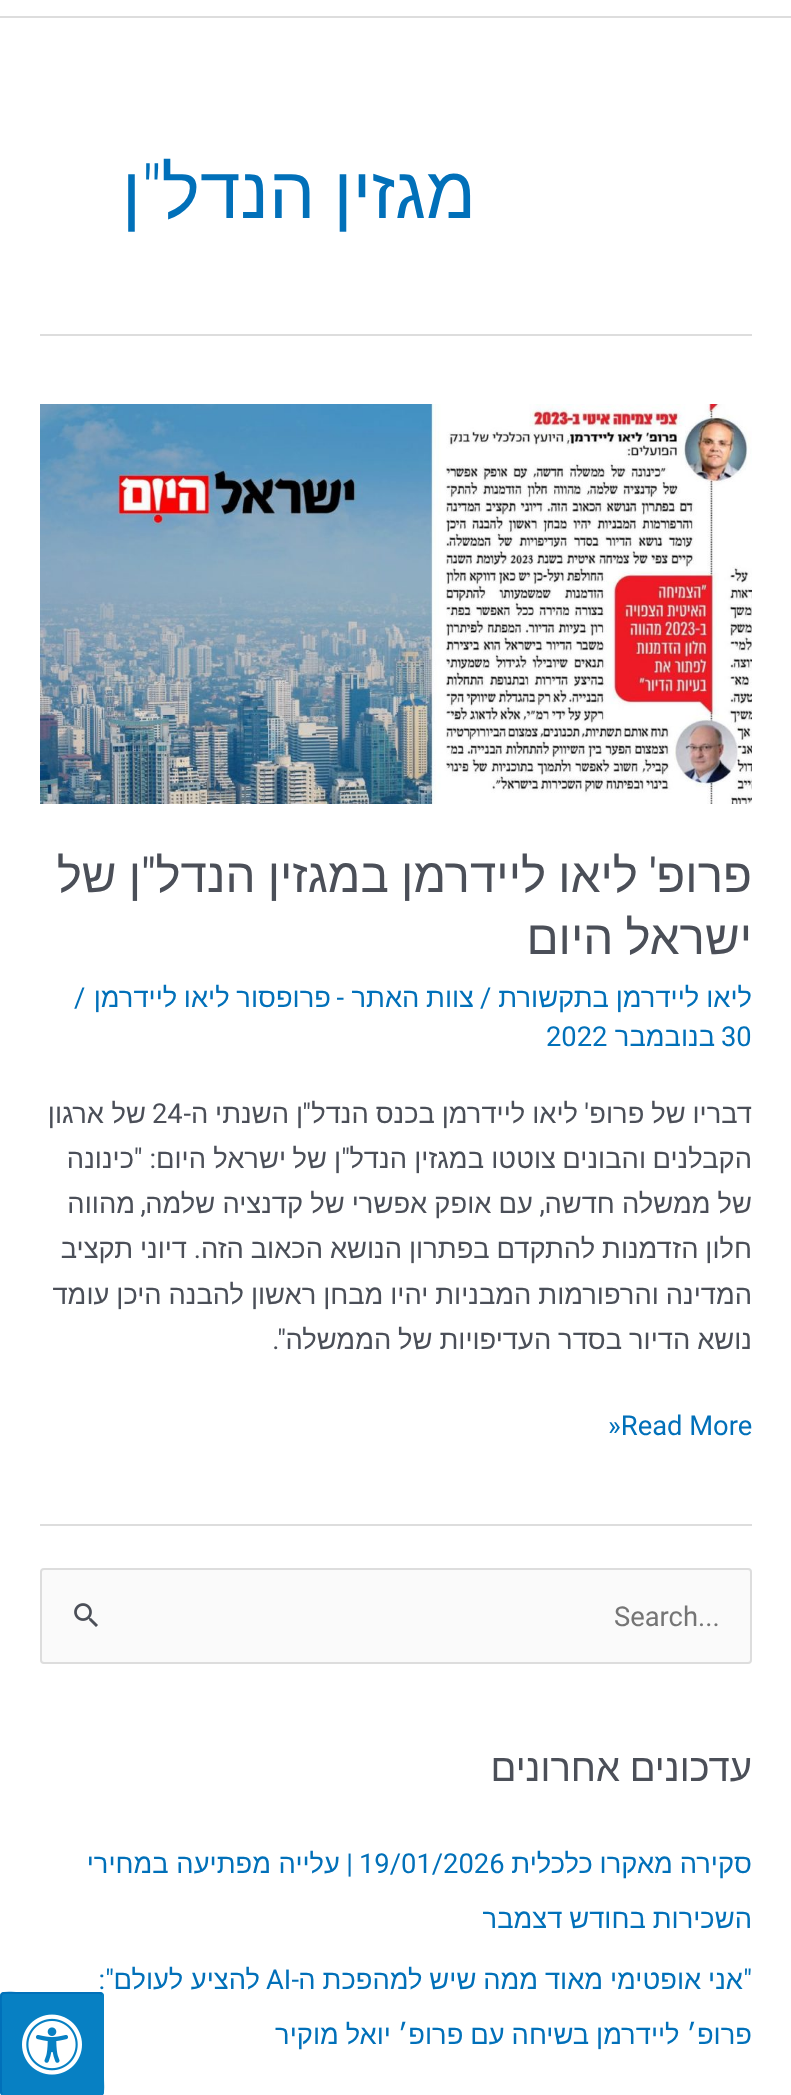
<!DOCTYPE html>
<meta charset="utf-8">
<style>body { margin: 0 } canvas { display: block }</style>
<canvas id="canvas" width="791" height="2095"></canvas>
<script type="module">
  const canvas = document.getElementById("canvas");
  const g = canvas.getContext("2d");
  g.miterLimit = 4;
  g.fontKerning = "normal";
  function drawText(s, x, y, [font, color]) {
    g.font = font;
    g.fillStyle = color;
    g.fillText(s, x, y);
  }
  function fillBox(x, y, w, h, color) {
    g.fillStyle = color;
    g.fillRect(x, y, w, h);
  }
  function fillRounded(x, y, w, h, r, color) {
    g.fillStyle = color;
    g.beginPath();
    g.roundRect(x, y, w, h, r);
    g.fill();
  }
  async function drawPicture(src, x, y, w, h) {
    const img = new Image();
    img.src = src;
    await img.decode();
    g.drawImage(img, x, y, w, h);
  }

  const s1 = ["73px Liberation Sans", "#0170B9"];
  const s2 = ["300 73px Roboto", "#0170B9"];
  const s3 = ["47.5px Liberation Sans", "#4B4F58"];
  const s4 = ["47.5px Roboto", "#4B4F58"];
  const s5 = ["27.35px Liberation Sans", "#0170B9"];
  const s6 = ["27.35px Roboto", "#0170B9"];
  const s7 = ["27.35px Liberation Sans", "#4B4F58"];
  const s8 = ["27.35px Roboto", "#4B4F58"];
  const s9 = ["27.35px Roboto", "#757575"];
  const s10 = ["38.25px Liberation Sans", "#4B4F58"];

  fillBox(0, 0, 791, 2095, "#FFFFFF");
  fillBox(0, 16, 791, 2, "#DDDDDD");
  fillBox(40, 334, 712, 2, "#DDDDDD");
  g.wordSpacing = "-2px";
  g.direction = "rtl";
  drawText("מגזין הנדל", 476, 218, s1);
  g.wordSpacing = "0px";
  drawText("\"", 162, 218, s2);
  drawText("ן", 141, 218, s1);
  fillBox(40, 1524, 712, 2, "#DDDDDD");
  await drawPicture("pic1.png", 40, 404, 712, 400);
  drawText("פרופ", 752, 892, s3);
  drawText("'", 657, 892, s4);
  g.wordSpacing = "-1px";
  drawText("ליאו ליידרמן במגזין הנדל", 638, 892, s3);
  g.wordSpacing = "0px";
  drawText("\"", 156, 892, s4);
  g.wordSpacing = "-1px";
  drawText("ן של", 141, 892, s3);
  drawText("ישראל היום", 752, 954, s3);
  g.save();
  g.beginPath();
  g.rect(40, 404, 712, 1120);
  g.clip();
  g.wordSpacing = "-0.75px";
  drawText("ליאו ליידרמן בתקשורת", 752, 1007, s5);
  g.restore();
  g.wordSpacing = "0px";
  g.direction = "ltr";
  drawText("/", 480, 1007, s6);
  g.wordSpacing = "-1px";
  g.direction = "rtl";
  drawText("צוות האתר", 474, 1007, s5);
  g.wordSpacing = "0px";
  drawText("-", 344, 1007, s6);
  g.wordSpacing = "-1px";
  drawText("פרופסור ליאו ליידרמן", 331, 1007, s5);
  g.wordSpacing = "0px";
  g.direction = "ltr";
  drawText("/", 74, 1007, s6);
  drawText("30", 721, 1046, s6);
  g.direction = "rtl";
  drawText("בנובמבר", 715, 1046, s5);
  g.direction = "ltr";
  drawText("2022", 546, 1046, s6);
  g.save();
  g.beginPath();
  g.rect(40, 404, 712, 1120);
  g.clip();
  g.wordSpacing = "-0.75px";
  g.direction = "rtl";
  drawText("דבריו של פרופ", 752, 1123, s7);
  g.restore();
  g.direction = "rtl";
  drawText("'", 589, 1123, s8);
  g.wordSpacing = "-0.75px";
  drawText("ליאו ליידרמן בכנס הנדל", 578, 1123, s7);
  g.wordSpacing = "0px";
  drawText("\"", 311, 1123, s8);
  g.wordSpacing = "-0.75px";
  drawText("ן השנתי ה", 303, 1123, s7);
  g.wordSpacing = "0px";
  drawText("-", 191, 1123, s8);
  g.direction = "ltr";
  drawText("24", 152, 1123, s8);
  g.direction = "rtl";
  drawText("של ארגון", 146, 1123, s7);
  drawText("הקבלנים", 752, 1168, s7);
  drawText("והבונים", 646, 1168, s7);
  drawText("צוטטו", 556, 1168, s7);
  drawText("במגזין", 484, 1168, s7);
  drawText("הנדל", 407, 1168, s7);
  drawText("\"", 350, 1168, s8);
  drawText("ן", 341, 1168, s7);
  drawText("של", 327, 1168, s7);
  drawText("ישראל", 286, 1168, s7);
  drawText("היום", 206, 1168, s7);
  drawText(": \"", 156, 1168, s8);
  drawText("כינונה", 134, 1168, s7);
  g.wordSpacing = "-0.5px";
  drawText("של ממשלה חדשה", 752, 1213, s7);
  g.wordSpacing = "0px";
  drawText(",", 545, 1213, s8);
  g.wordSpacing = "-0.5px";
  drawText("עם אופק אפשרי של קדנציה שלמה", 533, 1213, s7);
  g.wordSpacing = "0px";
  drawText(",", 146, 1213, s8);
  drawText("מהווה", 135, 1213, s7);
  g.save();
  g.beginPath();
  g.rect(40, 404, 712, 1120);
  g.clip();
  g.wordSpacing = "-0.75px";
  drawText("חלון הזדמנות להתקדם בפתרון הנושא הכאוב הזה", 752, 1258, s7);
  g.restore();
  drawText(".", 201, 1258, s8);
  g.wordSpacing = "-0.75px";
  drawText("דיוני תקציב", 187, 1258, s7);
  g.save();
  g.beginPath();
  g.rect(40, 404, 712, 1120);
  g.clip();
  drawText("המדינה והרפורמות המבניות יהיו מבחן ראשון להבנה היכן עומד", 752, 1304, s7);
  drawText("נושא הדיור בסדר העדיפויות של הממשלה", 752, 1349, s7);
  g.restore();
  g.wordSpacing = "0px";
  drawText("\".", 286, 1349, s8);
  g.direction = "ltr";
  drawText("»Read More", 608, 1435, s6);
  g.fillStyle = "#FAFAFA";
  g.beginPath();
  g.roundRect(41, 1569, 710, 94, 3);
  g.fill();
  g.strokeStyle = "#DDDDDD";
  g.lineWidth = 2;
  g.stroke();
  drawText("Search...", 614, 1626, s9);
  await drawPicture("pic2.png", 74, 1603, 24, 24);
  g.wordSpacing = "-1px";
  g.direction = "rtl";
  drawText("עדכונים אחרונים", 752, 1781, s10);
  g.wordSpacing = "-0.75px";
  drawText("סקירה מאקרו כלכלית", 752, 1873, s5);
  g.wordSpacing = "0px";
  g.direction = "ltr";
  drawText("19/01/2026", 359, 1873, s6);
  g.direction = "rtl";
  drawText("|", 353, 1873, s6);
  drawText("עלייה מפתיעה במחירי", 340, 1873, s5);
  g.wordSpacing = "-0.75px";
  drawText("השכירות בחודש דצמבר", 752, 1928, s5);
  drawText("אני אופטימי מאוד ממה שיש למהפכת ה", 743, 1989, s5);
  g.wordSpacing = "0px";
  drawText("להציע לעולם", 260, 1989, s5);
  drawText("\":", 114, 1989, s6);
  drawText("\"", 752, 1989, s6);
  drawText("-", 299, 1989, s6);
  g.direction = "ltr";
  drawText("AI", 266, 1989, s6);
  g.wordSpacing = "-0.75px";
  g.direction = "rtl";
  drawText("פרופ׳ ליידרמן בשיחה עם פרופ׳ יואל מוקיר", 752, 2044, s5);
  fillRounded(0, 1992, 104, 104, 4, "#0780C3");
  g.beginPath();
  g.moveTo(102, 1994);
  g.lineTo(103, 1996);
  g.lineTo(103, 2076);
  g.bezierCurveTo(103, 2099, 107, 2095, 84, 2095);
  g.lineTo(4, 2095);
  g.lineTo(2, 2094);
  g.strokeStyle = "#0780C3";
  g.stroke();
  g.beginPath();
  g.moveTo(2, 2094);
  g.lineTo(1, 2092);
  g.lineTo(1, 2012);
  g.bezierCurveTo(1, 1989, -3, 1993, 20, 1993);
  g.lineTo(100, 1993);
  g.lineTo(102, 1994);
  g.strokeStyle = "#0170B9";
  g.stroke();
  await drawPicture("pic3.png", 22, 2014, 60, 61);
</script>
